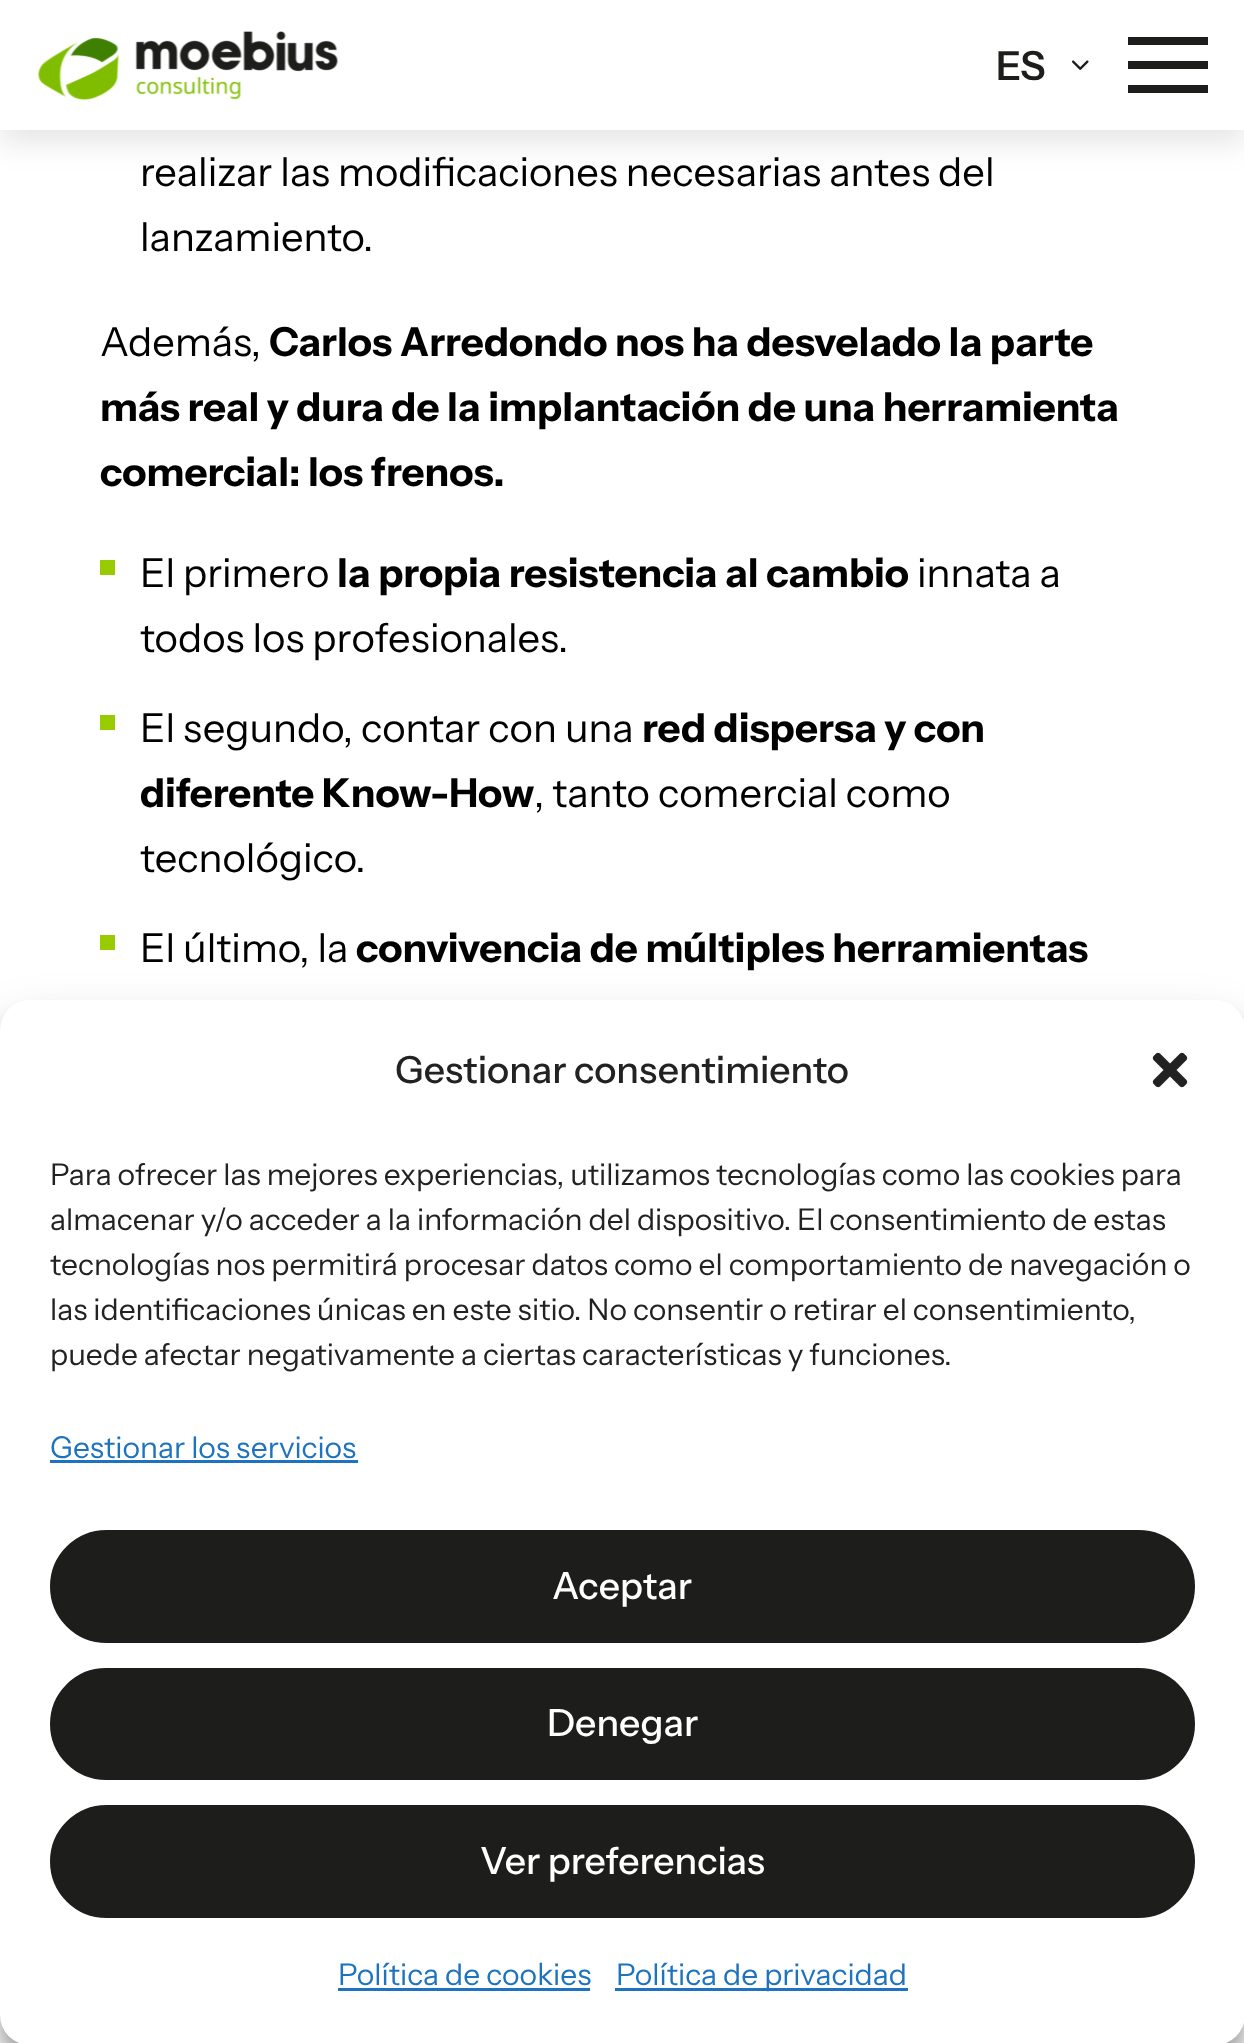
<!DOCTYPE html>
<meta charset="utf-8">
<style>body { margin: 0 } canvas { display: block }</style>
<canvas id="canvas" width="1244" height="2043"></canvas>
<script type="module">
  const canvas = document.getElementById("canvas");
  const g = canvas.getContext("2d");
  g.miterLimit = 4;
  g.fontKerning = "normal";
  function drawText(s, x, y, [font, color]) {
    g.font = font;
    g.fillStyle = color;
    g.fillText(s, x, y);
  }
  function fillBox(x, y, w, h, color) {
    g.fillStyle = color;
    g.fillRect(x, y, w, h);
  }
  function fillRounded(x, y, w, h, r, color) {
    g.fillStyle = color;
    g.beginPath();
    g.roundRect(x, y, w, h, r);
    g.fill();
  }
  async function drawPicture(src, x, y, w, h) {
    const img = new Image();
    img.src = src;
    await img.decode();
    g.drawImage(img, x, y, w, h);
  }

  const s1 = ["600 40px Instrument Sans", "#1D1D1B"];
  const s2 = ["40px Instrument Sans", "#000000"];
  const s3 = ["bold 40px Instrument Sans", "#000000"];
  const s4 = ["500 37.5px Instrument Sans", "#222222"];
  const s5 = ["30px Instrument Sans", "#222222"];
  const s6 = ["30px Instrument Sans", "#1E73BE"];
  const s7 = ["500 37.5px Instrument Sans", "#FFFFFF"];

  fillBox(0, 0, 1244, 2043, "#FFFFFF");
  g.fillStyle = "rgba(0, 0, 0, 0.1)";
  g.filter = "blur(15px)";
  g.beginPath();
  g.rect(0, 13, 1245, 130);
  g.fill();
  g.filter = "none";
  fillBox(0, 0, 1244, 130, "#FFFFFF");
  await drawPicture("pic1.png", 38, 31, 300, 69);
  drawText("ES", 996, 80, s1);
  await drawPicture("pic2.png", 1072, 60, 17, 10);
  g.beginPath();
  g.moveTo(1128, 37);
  g.lineTo(1208, 37);
  g.lineTo(1208, 45);
  g.lineTo(1128, 45);
  g.closePath();
  g.moveTo(1128, 61);
  g.lineTo(1208, 61);
  g.lineTo(1208, 69);
  g.lineTo(1128, 69);
  g.closePath();
  g.moveTo(1128, 85);
  g.lineTo(1208, 85);
  g.lineTo(1208, 93);
  g.lineTo(1128, 93);
  g.closePath();
  g.fill();
  drawText("realizar las modificaciones necesarias antes del", 140, 186, s2);
  drawText("lanzamiento.", 140, 251, s2);
  drawText("Además,", 100, 356, s2);
  drawText("Carlos Arredondo nos ha desvelado la parte", 269, 356, s3);
  drawText("más real y dura de la implantación de una herramienta", 100, 421, s3);
  drawText("comercial: los frenos.", 100, 486, s3);
  fillBox(100, 560, 15, 15, "#99CC00");
  drawText("El primero", 140, 587, s2);
  drawText("la propia resistencia al cambio", 337, 587, s3);
  drawText("innata a", 917, 587, s2);
  drawText("todos los profesionales.", 140, 652, s2);
  fillBox(100, 715, 15, 15, "#99CC00");
  drawText("El segundo, contar con una", 140, 742, s2);
  drawText("red dispersa y con", 642, 742, s3);
  drawText("diferente Know-How", 140, 807, s3);
  drawText(", tanto comercial como", 534, 807, s2);
  drawText("tecnológico.", 140, 872, s2);
  fillBox(100, 935, 15, 15, "#99CC00");
  drawText("El último, la", 140, 962, s2);
  drawText("convivencia de múltiples herramientas", 356, 962, s3);
  g.fillStyle = "rgba(0, 0, 0, 0.23)";
  g.filter = "blur(7.5px)";
  g.beginPath();
  g.roundRect(0, 1015, 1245, 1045, 30);
  g.fill();
  g.filter = "none";
  g.fillStyle = "rgba(0, 0, 0, 0.19)";
  g.filter = "blur(25px)";
  g.beginPath();
  g.roundRect(0, 1025, 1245, 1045, 30);
  g.fill();
  g.filter = "none";
  fillRounded(0, 1000, 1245, 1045, 30, "#FFFFFF");
  drawText("Gestionar consentimiento", 395, 1083, s4);
  await drawPicture("pic3.png", 1152, 1052, 36, 36);
  drawText("Para ofrecer las mejores experiencias, utilizamos tecnologías como las cookies para", 50, 1185, s5);
  drawText("almacenar y/o acceder a la información del dispositivo. El consentimiento de estas", 50, 1230, s5);
  drawText("tecnologías nos permitirá procesar datos como el comportamiento de navegación o", 50, 1275, s5);
  drawText("las identificaciones únicas en este sitio. No consentir o retirar el consentimiento,", 50, 1320, s5);
  drawText("puede afectar negativamente a ciertas características y funciones.", 50, 1365, s5);
  drawText("Gestionar los servicios", 50, 1458, s6);
  fillBox(50, 1460, 308, 3, "#1E73BE");
  g.fillStyle = "#1D1D1B";
  g.beginPath();
  g.roundRect(51.5, 1531.5, 1142, 110, 55);
  g.fill();
  g.strokeStyle = "#1D1D1B";
  g.lineWidth = 3;
  g.stroke();
  drawText("Aceptar", 552, 1599, s7);
  g.fillStyle = "#1D1D1B";
  g.beginPath();
  g.roundRect(51.5, 1669.5, 1142, 109, 54.5);
  g.fill();
  g.stroke();
  drawText("Denegar", 547, 1736, s7);
  g.fillStyle = "#1D1D1B";
  g.beginPath();
  g.roundRect(51.5, 1806.5, 1142, 110, 55);
  g.fill();
  g.stroke();
  drawText("Ver preferencias", 480, 1874, s7);
  drawText("Política de cookies", 338, 1985, s6);
  fillBox(338, 1988, 252, 3, "#1E73BE");
  fillBox(615, 1988, 293, 3, "#1E73BE");
  drawText("Política de privacidad", 616, 1985, s6);
</script>
